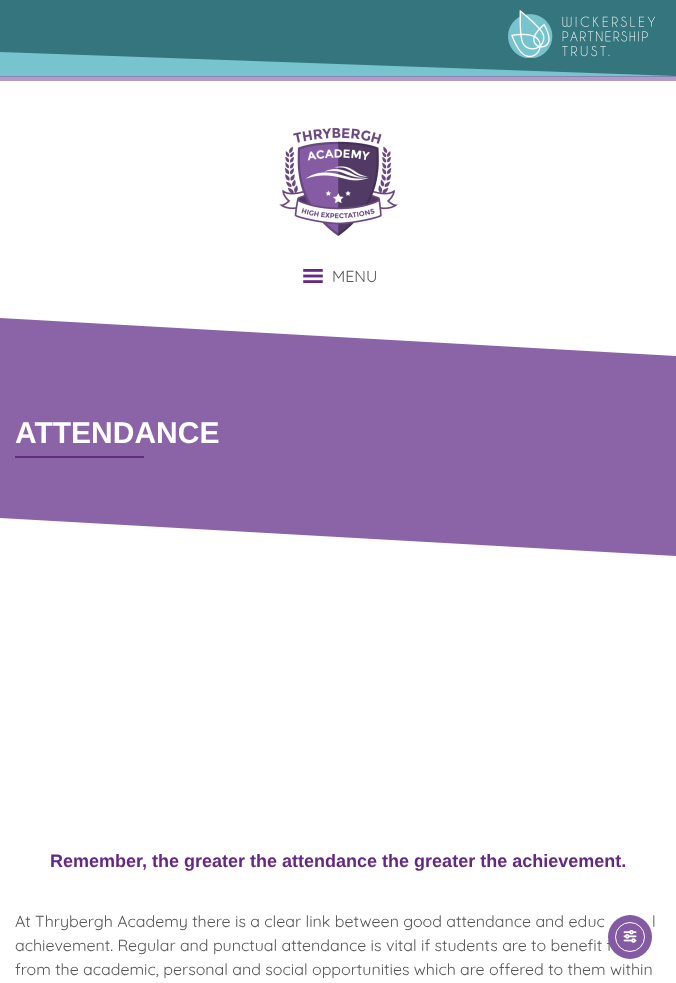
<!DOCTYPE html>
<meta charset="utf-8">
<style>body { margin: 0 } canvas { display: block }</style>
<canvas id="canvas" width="676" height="983"></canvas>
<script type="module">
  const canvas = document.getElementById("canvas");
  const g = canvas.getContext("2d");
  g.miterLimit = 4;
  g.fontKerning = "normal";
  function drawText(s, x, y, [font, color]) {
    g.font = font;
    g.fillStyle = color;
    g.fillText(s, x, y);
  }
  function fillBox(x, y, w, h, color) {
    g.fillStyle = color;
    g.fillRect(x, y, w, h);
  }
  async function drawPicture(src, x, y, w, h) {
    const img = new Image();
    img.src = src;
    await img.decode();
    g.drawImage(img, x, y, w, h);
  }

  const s1 = ["16px Quicksand", "#555658"];
  const s2 = ["bold 30px Liberation Sans", "#FFFFFF"];
  const s3 = ["bold 18px Liberation Sans", "#642983"];

  fillBox(0, 0, 676, 983, "#FFFFFF");
  fillBox(0, 0, 676, 76, "#34757E");
  g.fillStyle = "#78C4CE";
  g.beginPath();
  g.moveTo(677, 76);
  g.lineTo(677, 77);
  g.lineTo(-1, 77);
  g.lineTo(-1, 52);
  g.closePath();
  g.fill();
  await drawPicture("pic1.png", 508, 10, 147, 48);
  fillBox(0, 76, 676, 5, "rgba(139, 100, 168, 0.66)");
  await drawPicture("pic2.png", 279, 127, 119, 109);
  await drawPicture("pic3.png", 303, 269, 20, 14);
  drawText("MENU", 332, 282, s1);
  fillBox(0, 318, 676, 238, "#8B64A8");
  g.fillStyle = "#FFFFFF";
  g.beginPath();
  g.moveTo(-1, 318);
  g.lineTo(-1, 316);
  g.lineTo(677, 316);
  g.lineTo(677, 356);
  g.closePath();
  g.fill();
  drawText("ATTENDANCE", 15, 443, s2);
  fillBox(15, 456, 129, 2, "#642983");
  g.fillStyle = "#FFFFFF";
  g.beginPath();
  g.moveTo(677, 556);
  g.lineTo(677, 558);
  g.lineTo(-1, 558);
  g.lineTo(-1, 518);
  g.closePath();
  g.fill();
  drawText("Remember, the greater the attendance the greater the achievement.", 50, 867, s3);
  drawText("At Thrybergh Academy there is a clear link between good attendance and educ", 15, 927, s1);
  drawText("l", 652, 927, s1);
  drawText("achievement. Regular and punctual attendance is vital if students are to benefit f", 15, 951, s1);
  drawText("from the academic, personal and social opportunities which are offered to them within", 15, 975, s1);
  g.fillStyle = "#845BA2";
  g.beginPath();
  g.arc(630, 937, 22, 0, Math.PI * 2);
  g.fill();
  g.beginPath();
  g.arc(630, 937, 14.5, 0, Math.PI * 2);
  g.strokeStyle = "#FFFFFF";
  g.stroke();
  await drawPicture("pic4.png", 623, 929, 14, 14);
</script>
